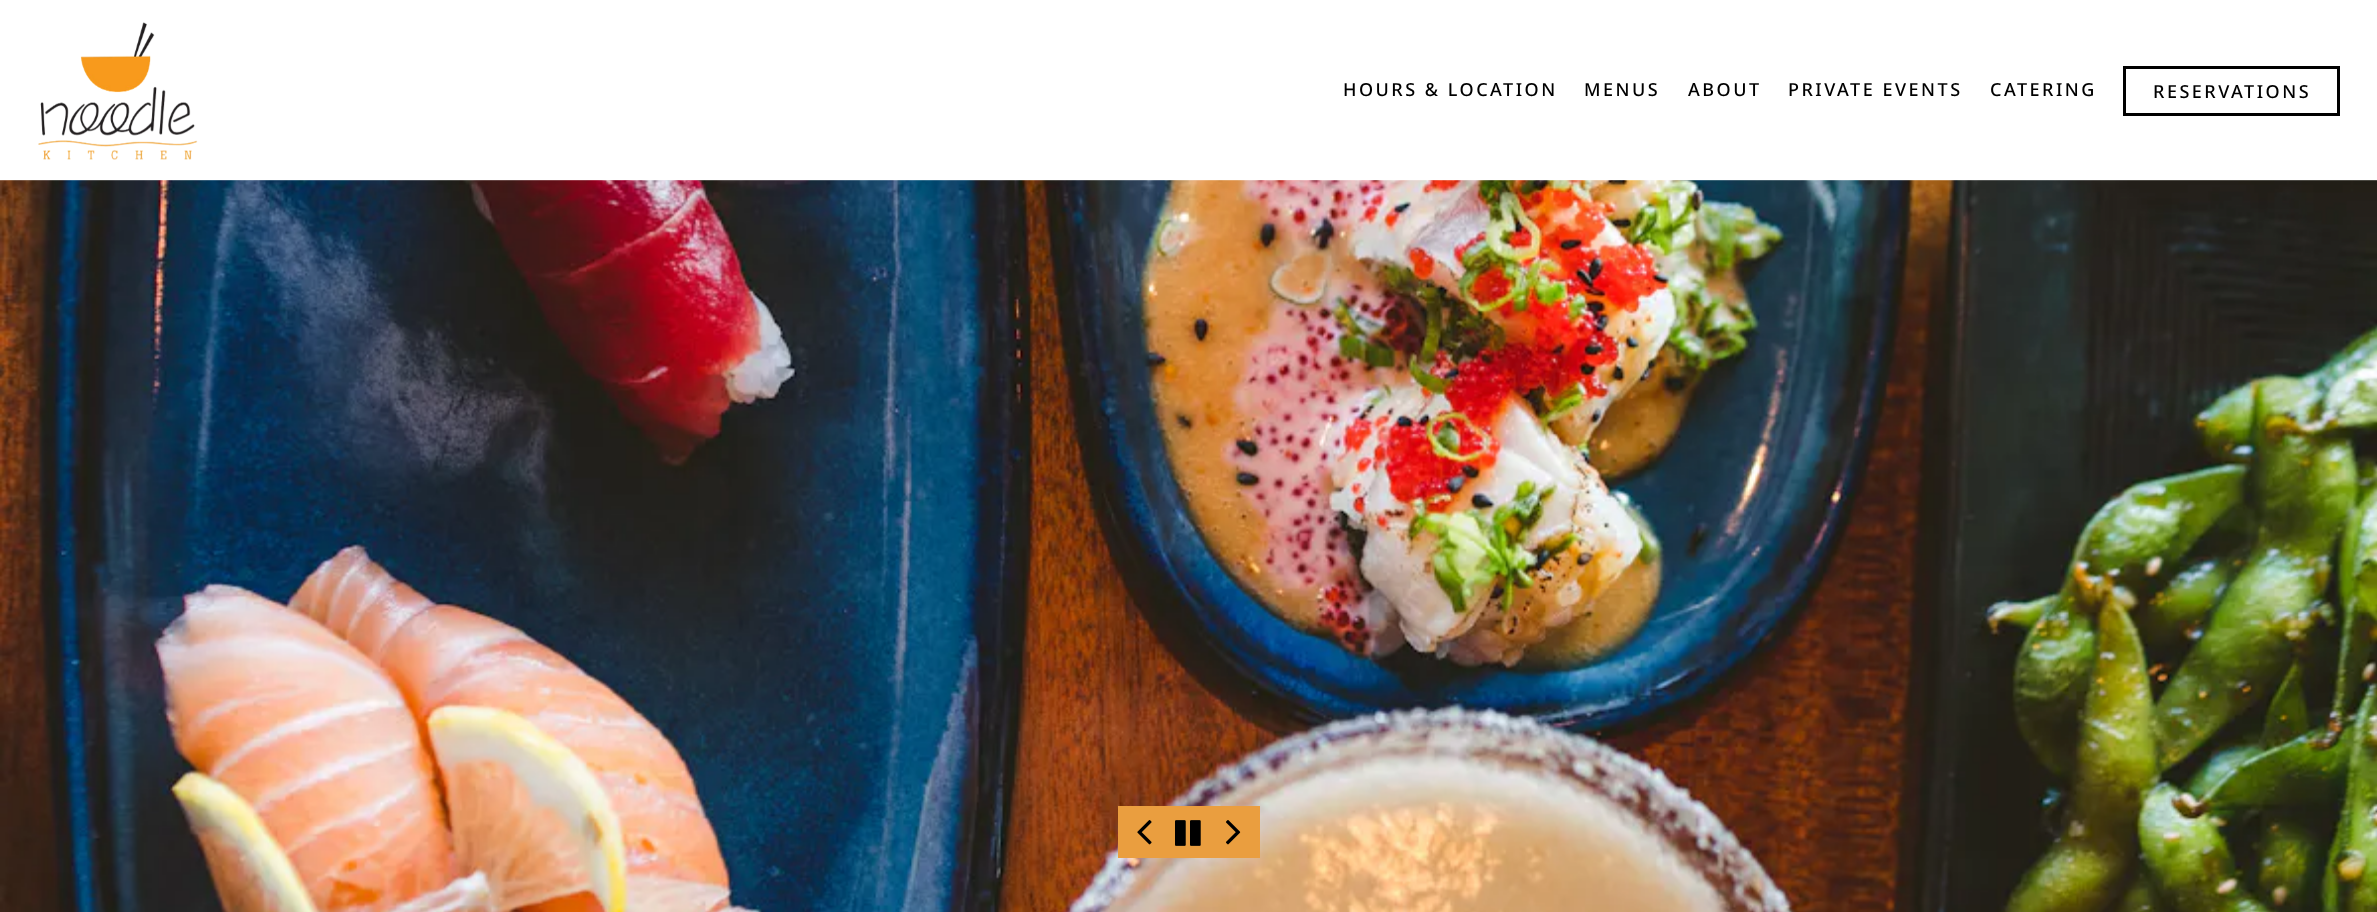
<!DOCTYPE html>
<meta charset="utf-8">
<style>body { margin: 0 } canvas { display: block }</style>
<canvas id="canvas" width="2377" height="912"></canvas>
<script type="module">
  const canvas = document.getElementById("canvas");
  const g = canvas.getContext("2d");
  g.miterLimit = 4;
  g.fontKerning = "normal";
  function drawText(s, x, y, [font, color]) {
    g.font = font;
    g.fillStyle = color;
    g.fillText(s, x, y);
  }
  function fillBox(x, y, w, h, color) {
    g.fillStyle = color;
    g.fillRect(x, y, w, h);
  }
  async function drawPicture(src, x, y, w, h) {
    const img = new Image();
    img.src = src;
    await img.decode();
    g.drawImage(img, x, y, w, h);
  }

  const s1 = ["500 18px Noto Sans", "#000000"];

  fillBox(0, 0, 2377, 912, "#FFFFFF");
  await drawPicture("pic1.png", 38, 22, 160, 138);
  g.letterSpacing = "2.5px";
  drawText("HOURS & LOCATION", 1343, 96, s1);
  drawText("MENUS", 1584, 96, s1);
  drawText("ABOUT", 1688, 96, s1);
  drawText("PRIVATE EVENTS", 1788, 96, s1);
  drawText("CATERING", 1990, 96, s1);
  g.strokeStyle = "#000000";
  g.lineWidth = 3;
  g.strokeRect(2124.5, 67.5, 214, 47);
  drawText("RESERVATIONS", 2153, 98, s1);
  await drawPicture("pic2.png", 0, 180, 2377, 732);
  fillBox(1118, 806, 46, 52, "#EA9E3F");
  await drawPicture("pic3.png", 1137, 820, 15, 25);
  fillBox(1164, 806, 96, 52, "#EA9E3F");
  await drawPicture("pic4.png", 1226, 820, 15, 25);
  await drawPicture("pic5.png", 1175, 820, 26, 26);
</script>
